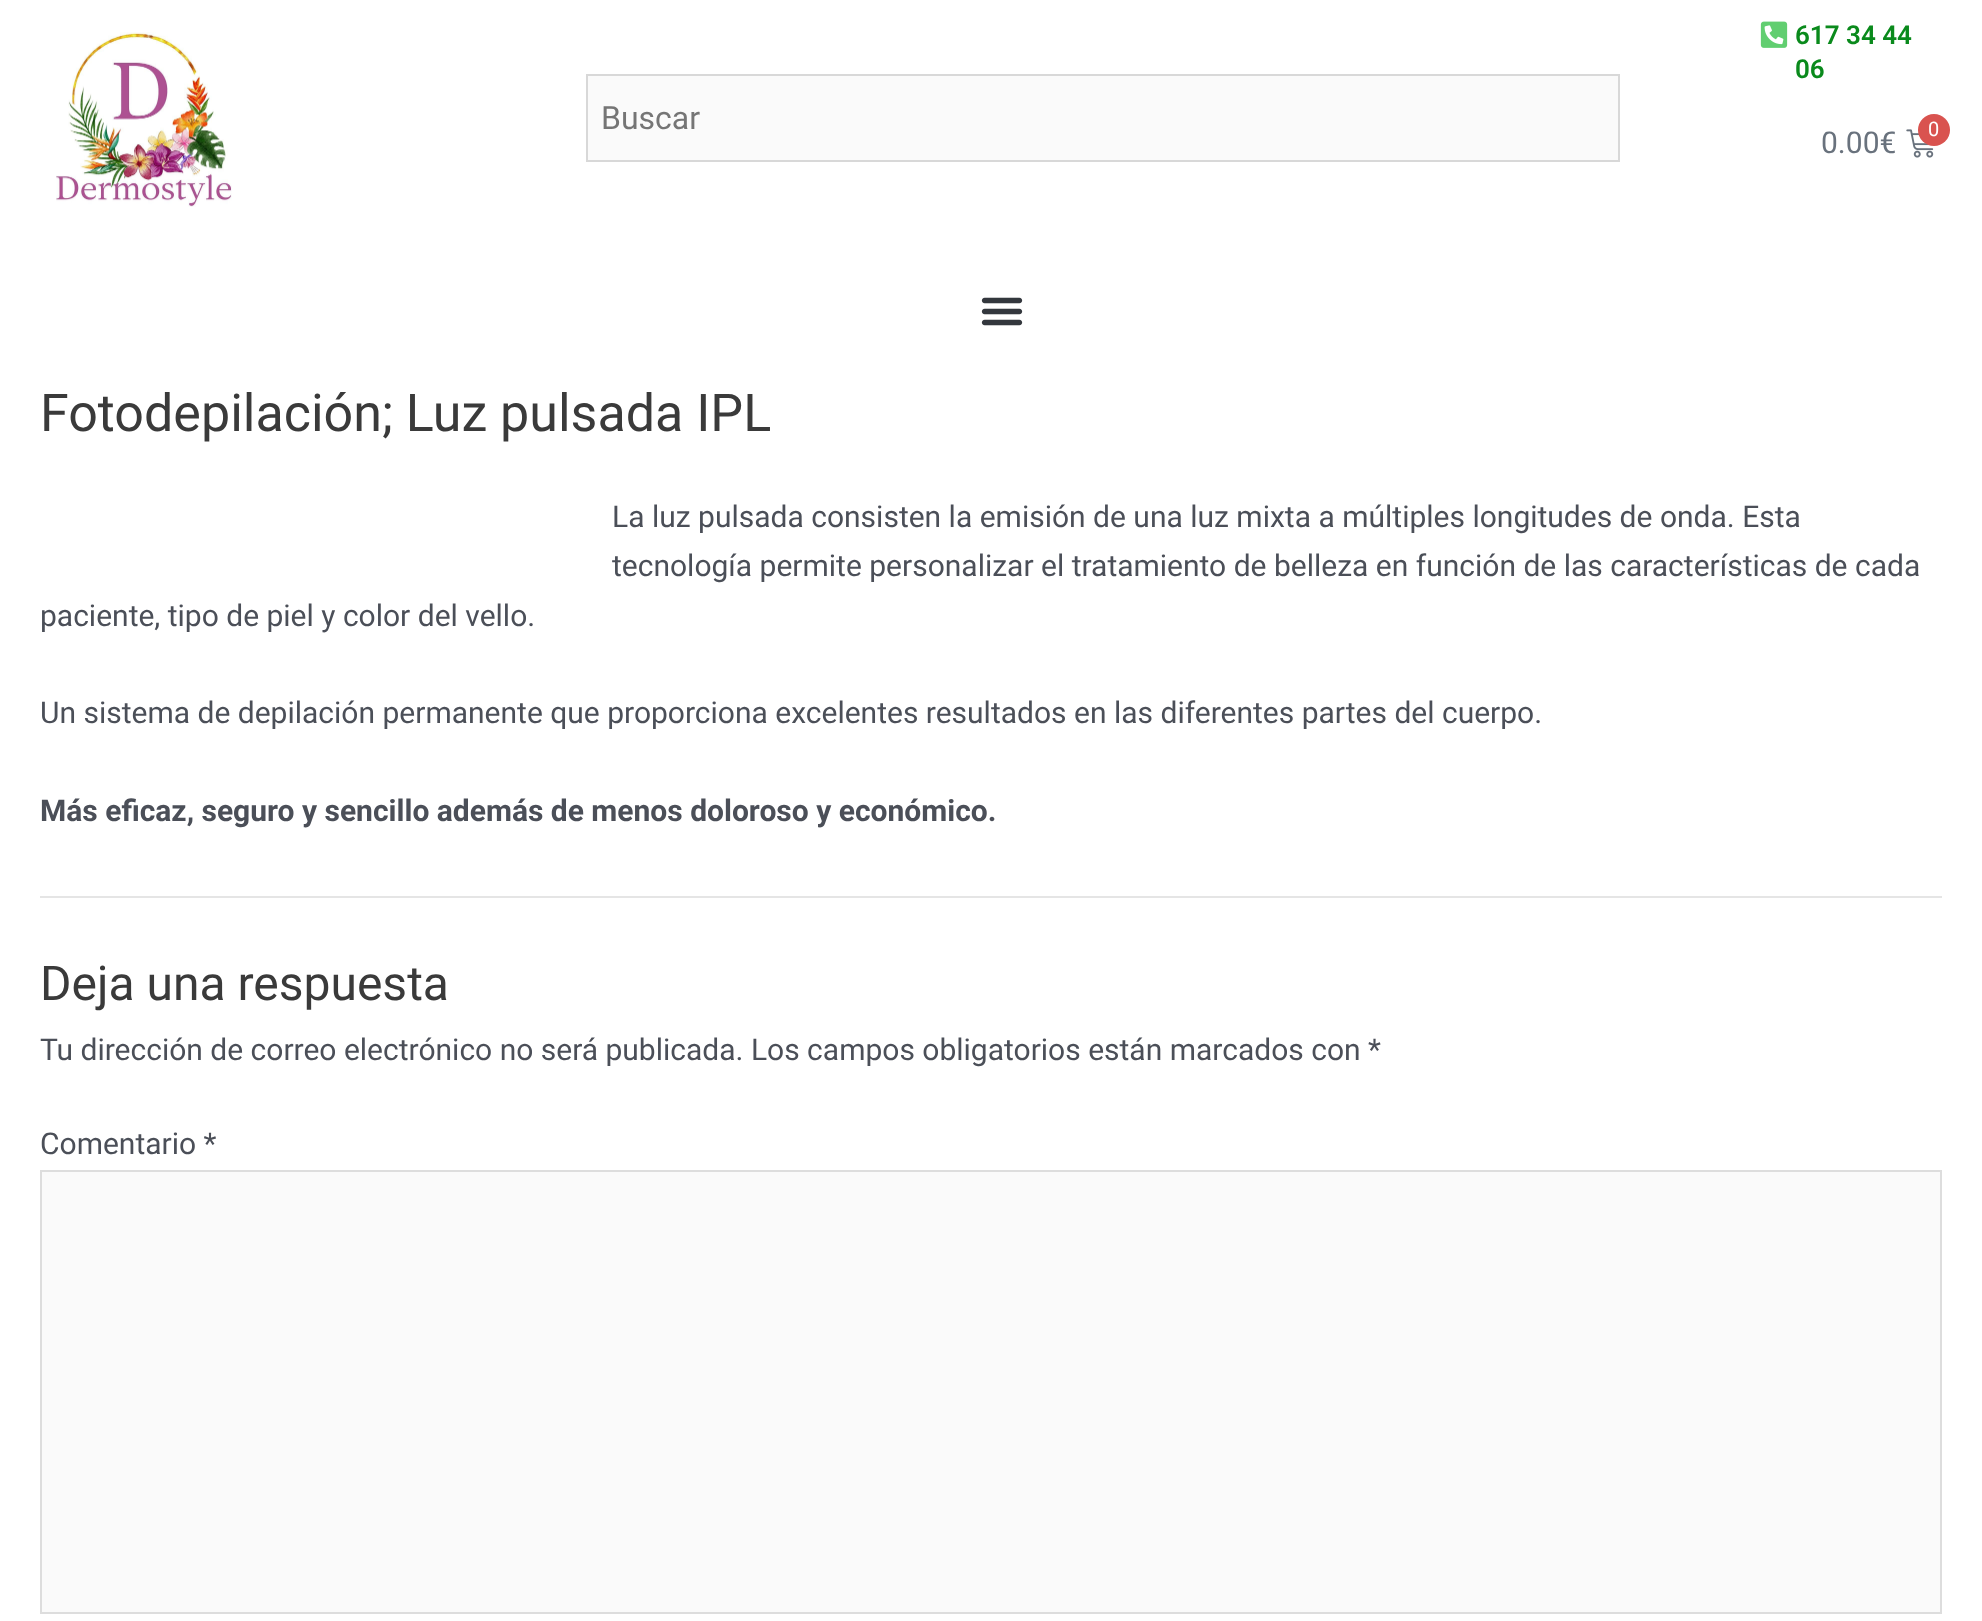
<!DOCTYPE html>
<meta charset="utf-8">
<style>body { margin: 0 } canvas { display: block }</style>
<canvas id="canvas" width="1982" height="1621"></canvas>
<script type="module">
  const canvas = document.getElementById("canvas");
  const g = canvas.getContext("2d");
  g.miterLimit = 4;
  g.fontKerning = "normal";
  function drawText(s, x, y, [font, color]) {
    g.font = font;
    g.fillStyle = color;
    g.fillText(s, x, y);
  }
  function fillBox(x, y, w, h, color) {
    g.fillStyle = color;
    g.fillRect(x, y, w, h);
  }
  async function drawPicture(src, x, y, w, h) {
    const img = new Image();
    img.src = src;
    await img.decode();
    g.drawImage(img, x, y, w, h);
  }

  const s1 = ["32px Roboto", "#757575"];
  const s2 = ["600 26px Roboto", "#0A8A1C"];
  const s3 = ["20px Roboto", "#FFFFFF"];
  const s4 = ["30px Roboto", "#69727D"];
  const s5 = ["52px Roboto", "#3A3A3A"];
  const s6 = ["30px Roboto", "#4B4F58"];
  const s7 = ["bold 30px Roboto", "#4B4F58"];
  const s8 = ["48px Roboto", "#3A3A3A"];

  fillBox(0, 0, 1982, 1621, "#FFFFFF");
  await drawPicture("pic1.png", 56, 32, 176, 175);
  g.fillStyle = "#FAFAFA";
  g.beginPath();
  g.rect(587, 75, 1032, 86);
  g.fill();
  g.strokeStyle = "#D8D8D8";
  g.lineWidth = 2;
  g.stroke();
  drawText("Buscar", 601, 129, s1);
  await drawPicture("pic2.png", 1760, 21, 28, 27);
  drawText("617 34 44", 1795, 44, s2);
  drawText("06", 1795, 78, s2);
  await drawPicture("pic3.png", 1906, 129, 28, 29);
  g.fillStyle = "#D9534F";
  g.beginPath();
  g.arc(1934, 130, 16, 0, Math.PI * 2);
  g.fill();
  drawText("0", 1928, 136, s3);
  drawText("0.00€", 1821, 153, s4);
  await drawPicture("pic4.png", 981, 297, 42, 29);
  drawText("Fotodepilación; Luz pulsada IPL", 40, 431, s5);
  drawText("La luz pulsada consisten la emisión de una luz mixta a múltiples longitudes de onda. Esta", 612, 527, s6);
  drawText("tecnología permite personalizar el tratamiento de belleza en función de las características de cada", 612, 576, s6);
  drawText("paciente, tipo de piel y color del vello.", 40, 626, s6);
  drawText("Un sistema de depilación permanente que proporciona excelentes resultados en las diferentes partes del cuerpo.", 40, 723, s6);
  drawText("Más eficaz, seguro y sencillo además de menos doloroso y económico.", 40, 821, s7);
  fillBox(40, 896, 1902, 2, "#E5E5E5");
  drawText("Deja una respuesta", 40, 1000, s8);
  drawText("Tu dirección de correo electrónico no será publicada. Los campos obligatorios están marcados con *", 40, 1060, s6);
  drawText("Comentario *", 40, 1154, s6);
  g.fillStyle = "#FAFAFA";
  g.beginPath();
  g.rect(41, 1171, 1900, 442);
  g.fill();
  g.strokeStyle = "#DDDDDD";
  g.stroke();
</script>
